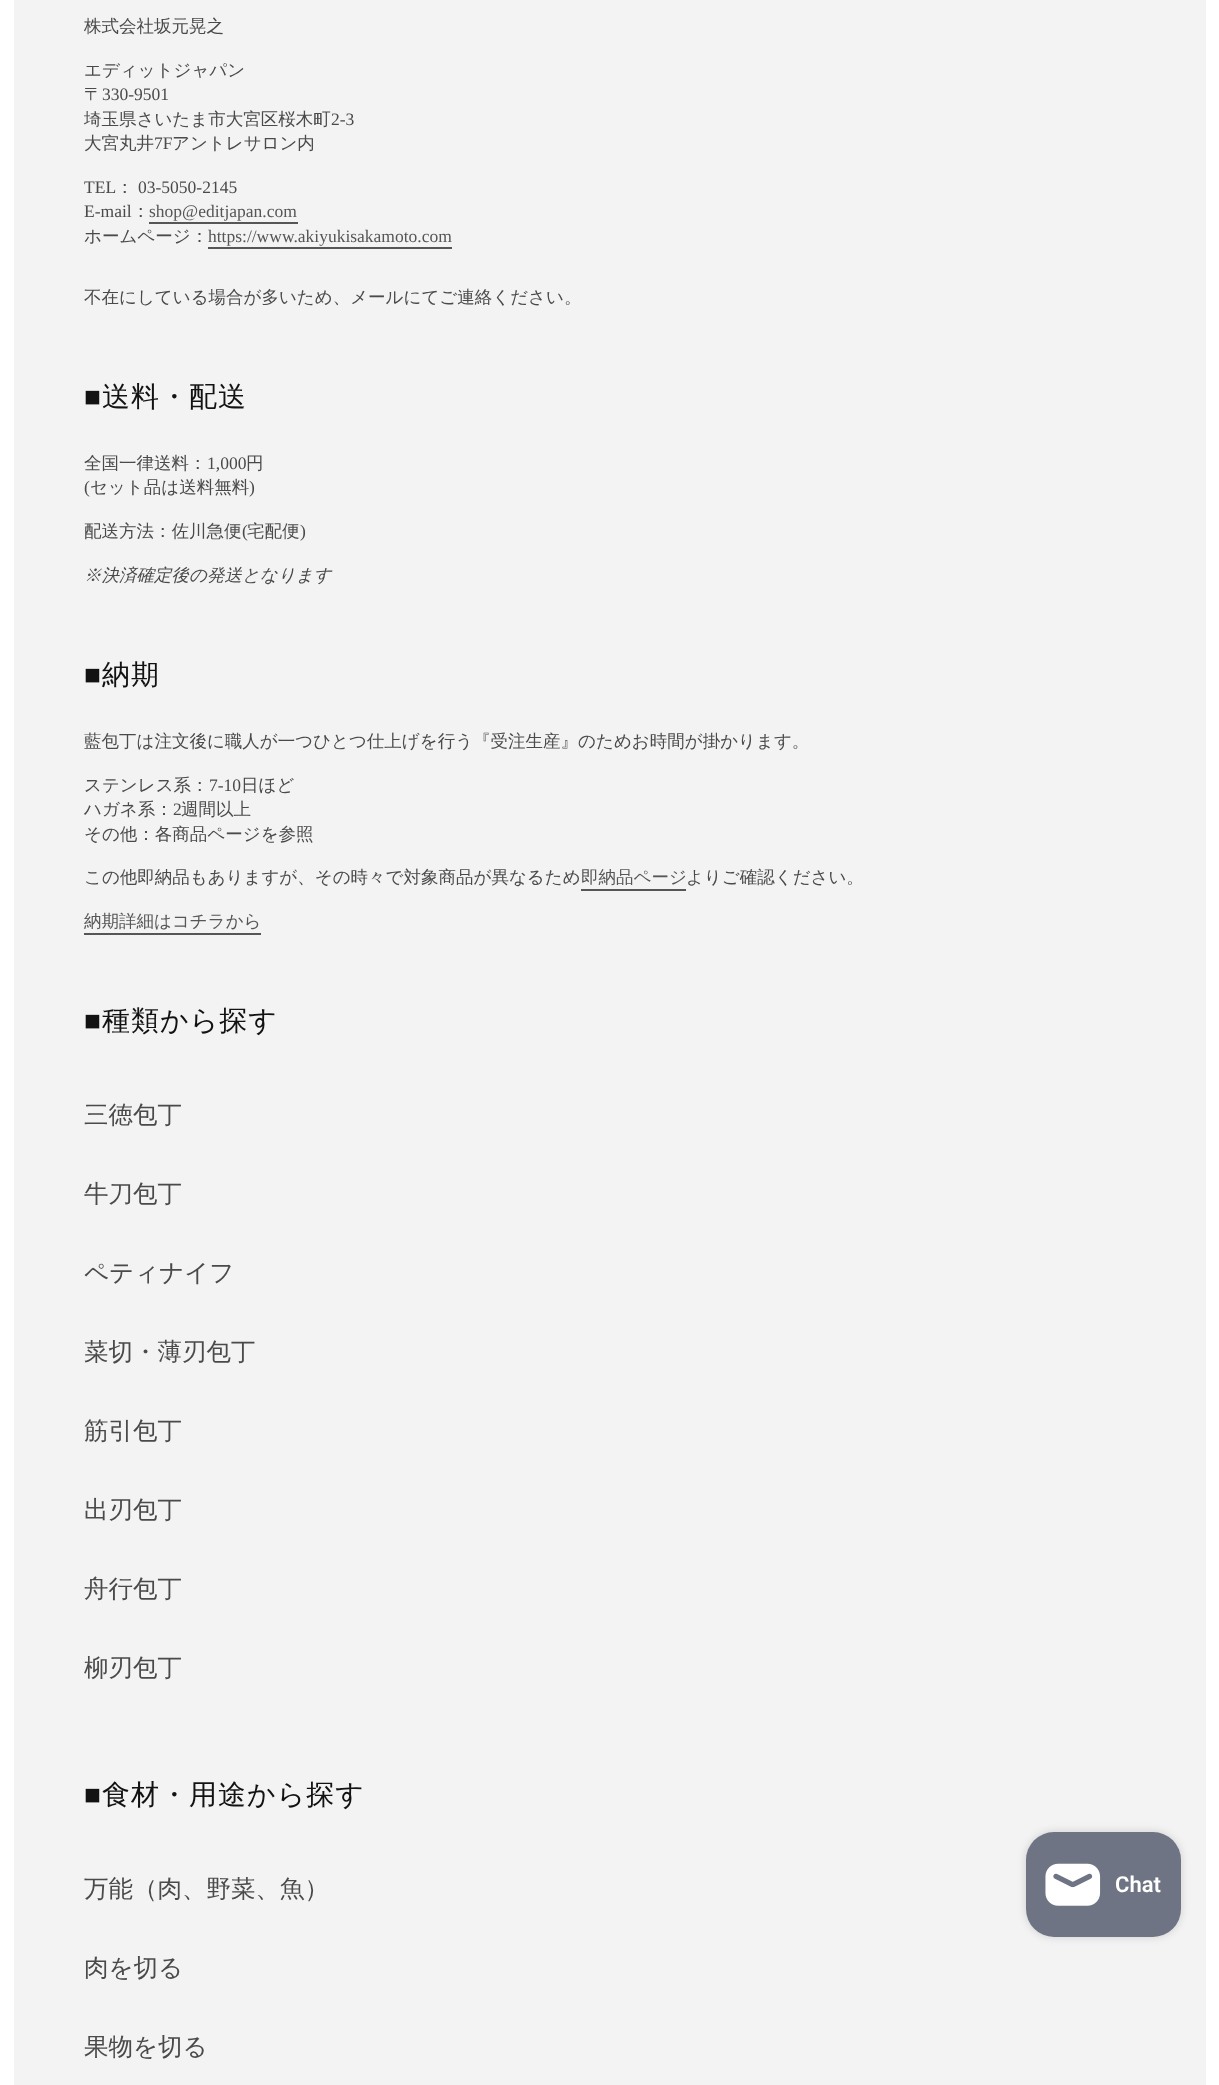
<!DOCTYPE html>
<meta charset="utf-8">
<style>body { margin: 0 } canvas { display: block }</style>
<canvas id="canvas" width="1219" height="2085"></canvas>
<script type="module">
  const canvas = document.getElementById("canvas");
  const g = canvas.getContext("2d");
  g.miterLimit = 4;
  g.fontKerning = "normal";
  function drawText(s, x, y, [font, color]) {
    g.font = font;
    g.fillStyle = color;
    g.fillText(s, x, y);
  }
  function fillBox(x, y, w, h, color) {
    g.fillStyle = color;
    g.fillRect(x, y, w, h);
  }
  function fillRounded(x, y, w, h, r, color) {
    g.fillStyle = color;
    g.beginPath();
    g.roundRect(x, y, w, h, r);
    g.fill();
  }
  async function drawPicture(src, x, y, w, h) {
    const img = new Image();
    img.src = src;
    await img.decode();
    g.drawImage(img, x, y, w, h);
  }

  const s1 = ["500 17.5px WenQuanYi Zen Hei", "#4A4A4A"];
  const s2 = ["17.5px Liberation Serif", "#4A4A4A"];
  const s3 = ["17.5px Liberation Serif", "#565656"];
  const s4 = ["28px Liberation Serif", "#121212"];
  const s5 = ["500 28px WenQuanYi Zen Hei", "#121212"];
  const s6 = ["italic 500 17.5px WenQuanYi Zen Hei", "#4A4A4A"];
  const s7 = ["500 17.5px WenQuanYi Zen Hei", "#565656"];
  const s8 = ["500 24.5px WenQuanYi Zen Hei", "#4A4A4A"];
  const s9 = ["600 22px Roboto", "#FFFFFF"];

  fillBox(0, 0, 1219, 2085, "#FFFFFF");
  fillBox(14, 0, 1192, 2085, "#F3F3F3");
  drawText("株式会社坂元晃之", 84, 32, s1);
  drawText("エディットジャパン", 84, 76, s1);
  drawText("〒", 84, 100, s1);
  drawText("330-9501", 102, 100, s2);
  drawText("埼玉県さいたま市大宮区桜木町", 84, 125, s1);
  drawText("2-3", 331, 125, s2);
  drawText("大宮丸井", 84, 149, s1);
  drawText("7F", 154, 149, s2);
  drawText("アントレサロン内", 172, 149, s1);
  drawText("TEL", 84, 193, s2);
  drawText("：", 116, 193, s1);
  drawText("03-5050-2145", 138, 193, s2);
  drawText("E-mail", 84, 217, s2);
  drawText("：", 132, 217, s1);
  drawText("shop@editjapan.com", 149, 217, s3);
  fillBox(149, 222, 149, 2, "#565656");
  drawText("ホームページ：", 84, 242, s1);
  drawText("https://www.akiyukisakamoto.com", 208, 242, s3);
  fillBox(208, 247, 244, 2, "#565656");
  drawText("不在にしている場合が多いため、メールにてご連絡ください。", 84, 303, s1);
  g.letterSpacing = "1px";
  drawText("■", 84, 406, s4);
  drawText("送料・配送", 102, 406, s5);
  g.letterSpacing = "0px";
  drawText("全国一律送料：", 84, 469, s1);
  drawText("1,000", 207, 469, s2);
  drawText("円", 246, 469, s1);
  drawText("(", 84, 493, s2);
  drawText("セット品は送料無料", 90, 493, s1);
  drawText(")", 249, 493, s2);
  drawText("配送方法：佐川急便", 84, 537, s1);
  drawText("(", 242, 537, s2);
  drawText("宅配便", 247, 537, s1);
  drawText(")", 300, 537, s2);
  drawText("※決済確定後の発送となります", 84, 581, s6);
  g.letterSpacing = "1px";
  drawText("■", 84, 684, s4);
  drawText("納期", 102, 684, s5);
  g.letterSpacing = "0px";
  drawText("藍包丁は注文後に職人が一つひとつ仕上げを行う『受注生産』のためお時間が掛かります。", 84, 747, s1);
  drawText("ステンレス系：", 84, 791, s1);
  drawText("7-10", 209, 791, s2);
  drawText("日ほど", 241, 791, s1);
  drawText("ハガネ系：", 84, 815, s1);
  drawText("2", 173, 815, s2);
  drawText("週間以上", 181, 815, s1);
  drawText("その他：各商品ページを参照", 84, 840, s1);
  drawText("この他即納品もありますが、その時々で対象商品が異なるため", 84, 883, s1);
  drawText("即納品ページ", 581, 883, s7);
  fillBox(581, 889, 105, 2, "#565656");
  drawText("よりご確認ください。", 686, 883, s1);
  drawText("納期詳細はコチラから", 84, 927, s7);
  fillBox(84, 933, 177, 2, "#565656");
  g.letterSpacing = "1px";
  drawText("■", 84, 1030, s4);
  drawText("種類から探す", 102, 1030, s5);
  g.letterSpacing = "0px";
  drawText("三徳包丁", 84, 1123, s8);
  drawText("牛刀包丁", 84, 1202, s8);
  drawText("ペティナイフ", 84, 1281, s8);
  drawText("菜切・薄刃包丁", 84, 1360, s8);
  drawText("筋引包丁", 84, 1439, s8);
  drawText("出刃包丁", 84, 1518, s8);
  drawText("舟行包丁", 84, 1597, s8);
  drawText("柳刃包丁", 84, 1676, s8);
  g.letterSpacing = "1px";
  drawText("■", 84, 1804, s4);
  drawText("食材・用途から探す", 102, 1804, s5);
  g.letterSpacing = "0px";
  drawText("万能（肉、野菜、魚）", 84, 1897, s8);
  drawText("肉を切る", 84, 1976, s8);
  drawText("果物を切る", 84, 2055, s8);
  g.fillStyle = "rgba(0, 0, 0, 0.15)";
  g.filter = "blur(4.5px)";
  g.beginPath();
  g.roundRect(1026, 1832, 155, 105, 28);
  g.fill();
  g.filter = "none";
  fillRounded(1026, 1832, 155, 105, 28, "#6E7484");
  await drawPicture("pic1.png", 1045, 1863, 56, 43);
  drawText("Chat", 1115, 1892, s9);
</script>
